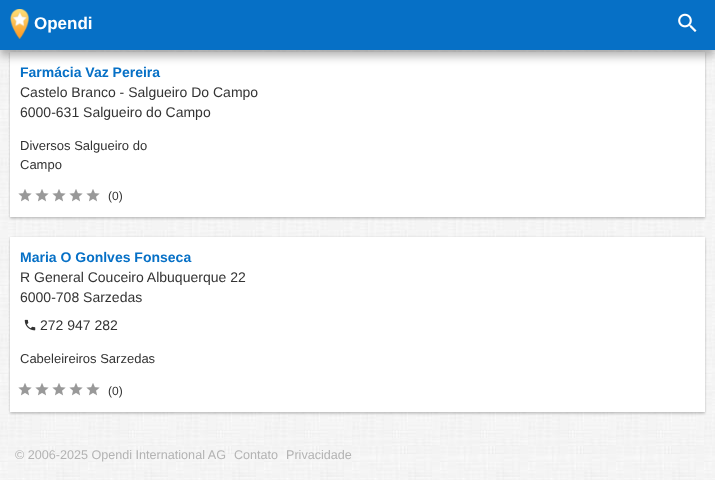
<!DOCTYPE html>
<meta charset="utf-8">
<style>body { margin: 0 } canvas { display: block }</style>
<canvas id="canvas" width="715" height="480"></canvas>
<script type="module">
  const canvas = document.getElementById("canvas");
  const g = canvas.getContext("2d");
  g.miterLimit = 4;
  g.fontKerning = "normal";
  function drawText(s, x, y, [font, color]) {
    g.font = font;
    g.fillStyle = color;
    g.fillText(s, x, y);
  }
  function fillBox(x, y, w, h, color) {
    g.fillStyle = color;
    g.fillRect(x, y, w, h);
  }
  async function drawPicture(src, x, y, w, h) {
    const img = new Image();
    img.src = src;
    await img.decode();
    g.drawImage(img, x, y, w, h);
  }

  const s1 = ["bold 17px Liberation Sans", "#FFFFFF"];
  const s2 = ["bold 14px Liberation Sans", "#0670C6"];
  const s3 = ["14px Liberation Sans", "#333333"];
  const s4 = ["13px Liberation Sans", "#333333"];
  const s5 = ["12px Liberation Sans", "#333333"];
  const s6 = ["12.6px Liberation Sans", "#B3B3B3"];

  fillBox(0, 0, 715, 480, "#FFFFFF");
  await drawPicture("pic1.png", 0, 50, 715, 430);
  g.fillStyle = "rgba(0, 0, 0, 0.12)";
  g.filter = "blur(1px)";
  g.beginPath();
  g.rect(10, 52, 695, 165);
  g.fill();
  g.filter = "none";
  g.fillStyle = "rgba(0, 0, 0, 0.16)";
  g.filter = "blur(1px)";
  g.beginPath();
  g.rect(10, 54, 695, 165);
  g.fill();
  g.filter = "none";
  fillBox(10, 52, 695, 165, "#FFFFFF");
  g.fillStyle = "rgba(0, 0, 0, 0.3)";
  g.filter = "blur(5px)";
  g.beginPath();
  g.rect(0, 6, 715, 50);
  g.fill();
  g.filter = "none";
  fillBox(0, 0, 715, 50, "#0670C6");
  await drawPicture("pic2.png", 10, 9, 19, 30);
  drawText("Opendi", 34, 29, s1);
  await drawPicture("pic3.png", 678, 13, 19, 19);
  drawText("Farmácia Vaz Pereira", 20, 77, s2);
  drawText("Castelo Branco - Salgueiro Do Campo", 20, 97, s3);
  drawText("6000-631 Salgueiro do Campo", 20, 117, s3);
  drawText("Diversos Salgueiro do", 20, 150, s4);
  drawText("Campo", 20, 169, s4);
  await drawPicture("pic4.png", 18, 189, 14, 13);
  await drawPicture("pic4.png", 35, 189, 14, 13);
  await drawPicture("pic4.png", 52, 189, 14, 13);
  await drawPicture("pic4.png", 69, 189, 14, 13);
  await drawPicture("pic4.png", 86, 189, 14, 13);
  drawText("(0)", 108, 200, s5);
  g.fillStyle = "rgba(0, 0, 0, 0.12)";
  g.filter = "blur(1px)";
  g.beginPath();
  g.rect(10, 237, 695, 175);
  g.fill();
  g.filter = "none";
  g.fillStyle = "rgba(0, 0, 0, 0.16)";
  g.filter = "blur(1px)";
  g.beginPath();
  g.rect(10, 239, 695, 175);
  g.fill();
  g.filter = "none";
  fillBox(10, 237, 695, 175, "#FFFFFF");
  drawText("Maria O Gonlves Fonseca", 20, 262, s2);
  drawText("R General Couceiro Albuquerque 22", 20, 282, s3);
  drawText("6000-708 Sarzedas", 20, 302, s3);
  await drawPicture("pic5.png", 24, 319, 12, 12);
  drawText("272 947 282", 40, 330, s3);
  drawText("Cabeleireiros Sarzedas", 20, 363, s4);
  await drawPicture("pic4.png", 18, 383, 14, 13);
  await drawPicture("pic4.png", 35, 383, 14, 13);
  await drawPicture("pic4.png", 52, 383, 14, 13);
  await drawPicture("pic4.png", 69, 383, 14, 13);
  await drawPicture("pic4.png", 86, 383, 14, 13);
  drawText("(0)", 108, 395, s5);
  drawText("© 2006-2025 Opendi International AG", 15, 459, s6);
  drawText("Contato", 234, 459, s6);
  drawText("Privacidade", 286, 459, s6);
</script>
